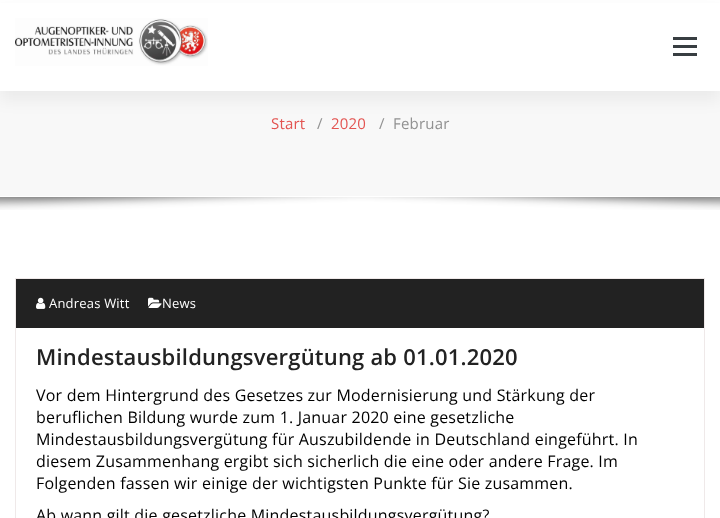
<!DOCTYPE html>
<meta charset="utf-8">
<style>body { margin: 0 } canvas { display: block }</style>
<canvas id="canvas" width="720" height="518"></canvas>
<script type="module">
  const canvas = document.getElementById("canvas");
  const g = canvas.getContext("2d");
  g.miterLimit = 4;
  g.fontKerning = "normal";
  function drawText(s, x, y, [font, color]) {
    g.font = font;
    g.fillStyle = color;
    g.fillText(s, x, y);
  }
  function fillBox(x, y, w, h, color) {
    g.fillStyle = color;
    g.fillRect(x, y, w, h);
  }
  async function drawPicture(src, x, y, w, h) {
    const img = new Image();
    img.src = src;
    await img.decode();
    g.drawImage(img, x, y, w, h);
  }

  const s1 = ["15px Open Sans", "#E35451"];
  const s2 = ["15px Open Sans", "#919191"];
  const s3 = ["13px Open Sans", "#FFFFFF"];
  const s4 = ["600 22px Open Sans", "#222222"];
  const s5 = ["16px Open Sans", "#000000"];

  fillBox(0, 0, 720, 518, "#FFFFFF");
  fillBox(0, 91, 720, 105, "#F8F8F8");
  g.fillStyle = "rgba(0, 0, 0, 0.05)";
  g.filter = "blur(7.5px)";
  g.beginPath();
  g.rect(0, 9, 720, 92);
  g.fill();
  g.filter = "none";
  fillBox(0, 3, 720, 88, "#FFFFFF");
  await drawPicture("pic1.png", 15, 18, 193, 48);
  fillBox(673, 37, 24, 3, "#383E41");
  fillBox(673, 45, 24, 3, "#383E41");
  fillBox(673, 53, 24, 3, "#383E41");
  g.letterSpacing = "0.2px";
  drawText("Start", 271, 129, s1);
  drawText("/", 317, 129, s2);
  drawText("2020", 331, 129, s1);
  drawText("/", 379, 129, s2);
  drawText("Februar", 393, 129, s2);
  await drawPicture("pic2.png", 0, 197, 720, 13);
  g.strokeStyle = "#EFE9E9";
  g.strokeRect(15.5, 278.5, 689, 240);
  fillBox(16, 279, 688, 49, "#222222");
  await drawPicture("pic3.png", 36, 297, 10, 12);
  drawText("Andreas Witt", 49, 308, s3);
  await drawPicture("pic4.png", 148, 297, 14, 11);
  drawText("News", 162, 308, s3);
  drawText("Mindestausbildungsvergütung ab 01.01.2020", 36, 365, s4);
  drawText("Vor dem Hintergrund des Gesetzes zur Modernisierung und Stärkung der", 36, 401, s5);
  drawText("beruflichen Bildung wurde zum 1. Januar 2020 eine gesetzliche", 36, 423, s5);
  drawText("Mindestausbildungsvergütung für Auszubildende in Deutschland eingeführt. In", 36, 445, s5);
  drawText("diesem Zusammenhang ergibt sich sicherlich die eine oder andere Frage. Im", 36, 467, s5);
  drawText("Folgenden fassen wir einige der wichtigsten Punkte für Sie zusammen.", 36, 489, s5);
  drawText("Ab wann gilt die gesetzliche Mindestausbildungsvergütung?", 36, 521, s5);
</script>
